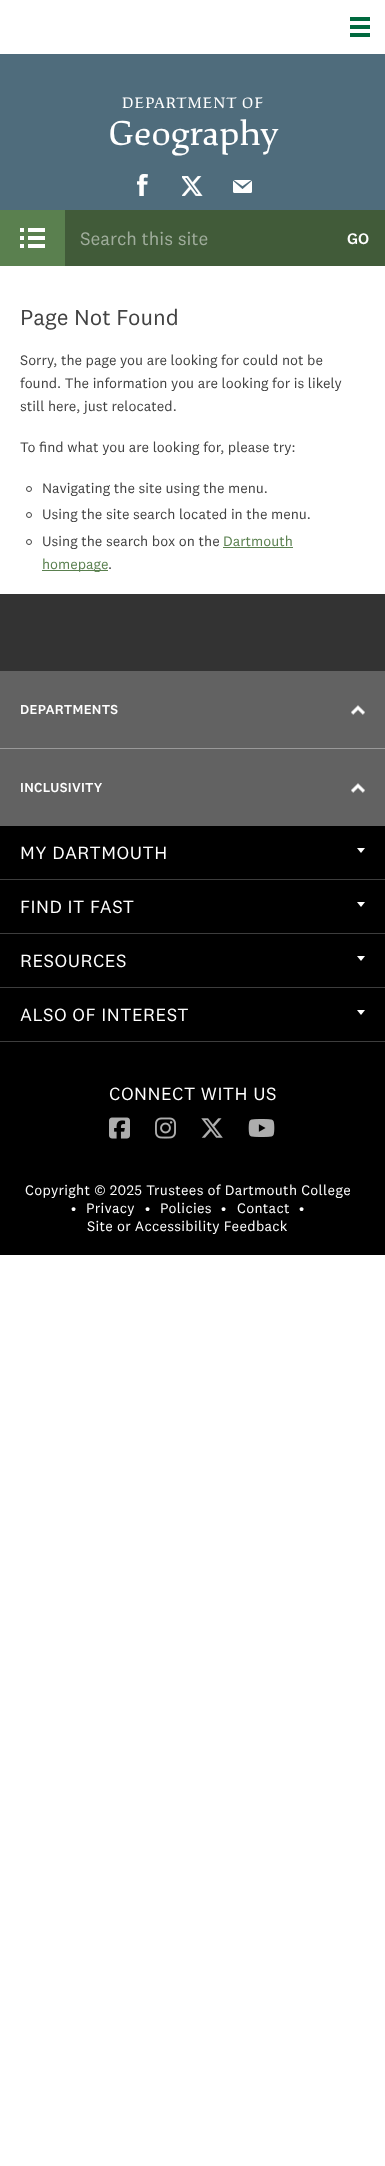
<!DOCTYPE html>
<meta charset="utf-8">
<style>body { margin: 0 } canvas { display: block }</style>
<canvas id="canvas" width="385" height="2166"></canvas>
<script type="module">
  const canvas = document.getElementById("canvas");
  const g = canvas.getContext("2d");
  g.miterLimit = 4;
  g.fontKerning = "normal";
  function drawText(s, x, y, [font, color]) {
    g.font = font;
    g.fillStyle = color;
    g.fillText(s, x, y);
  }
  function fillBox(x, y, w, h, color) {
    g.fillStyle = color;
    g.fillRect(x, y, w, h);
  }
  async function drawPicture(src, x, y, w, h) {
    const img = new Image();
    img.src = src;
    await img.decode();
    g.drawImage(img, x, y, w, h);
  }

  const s1 = ["16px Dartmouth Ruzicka", "#FFFFFF"];
  const s2 = ["37px Dartmouth Ruzicka", "#FFFFFF"];
  const s3 = ["18.75px 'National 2'", "#A0AD9C"];
  const s4 = ["500 16px 'National 2'", "#FFFFFF"];
  const s5 = ["22.5px 'National 2'", "#424242"];
  const s6 = ["14.4px 'National 2'", "#424242"];
  const s7 = ["14.4px 'National 2'", "#5A804F"];
  const s8 = ["500 13.5px 'National 2'", "#FFFFFF"];
  const s9 = ["18.5px 'National 2'", "#FFFFFF"];
  const s10 = ["14.4px 'National 2'", "#FFFFFF"];

  fillBox(0, 0, 385, 2166, "#FFFFFF");
  await drawPicture("pic1.png", 350, 17, 20, 20);
  fillBox(0, 54, 385, 156, "#4F6C7C");
  g.letterSpacing = "1px";
  drawText("DEPARTMENT OF", 122, 108, s1);
  g.letterSpacing = "0px";
  drawText("Geography", 108, 145, s2);
  await drawPicture("pic2.png", 137, 174, 11, 22);
  await drawPicture("pic3.png", 182, 176, 21, 20);
  await drawPicture("pic4.png", 233, 180, 19, 13);
  fillBox(0, 210, 65, 56, "#5A804F");
  await drawPicture("pic5.png", 20, 228, 25, 20);
  fillBox(65, 210, 320, 56, "#415B39");
  drawText("Search this site", 80, 245, s3);
  drawText("GO", 347, 244, s4);
  drawText("Page Not Found", 20, 325, s5);
  drawText("Sorry, the page you are looking for could not be", 20, 365, s6);
  drawText("found. The information you are looking for is likely", 20, 388, s6);
  drawText("still here, just relocated.", 20, 411, s6);
  drawText("To find what you are looking for, please try:", 20, 452, s6);
  g.beginPath();
  g.arc(29, 489, 2.5, 0, Math.PI * 2);
  g.strokeStyle = "#424242";
  g.stroke();
  drawText("Navigating the site using the menu.", 42, 493, s6);
  g.beginPath();
  g.arc(29, 515, 2.5, 0, Math.PI * 2);
  g.stroke();
  drawText("Using the site search located in the menu.", 42, 519, s6);
  g.beginPath();
  g.arc(29, 542, 2.5, 0, Math.PI * 2);
  g.stroke();
  drawText("Using the search box on the", 42, 546, s6);
  drawText("Dartmouth", 223, 546, s7);
  fillBox(223, 547, 70, 1, "#5A804F");
  fillBox(42, 570, 66, 1, "#5A804F");
  drawText("homepage", 42, 569, s7);
  drawText(".", 108, 569, s6);
  fillBox(0, 594, 385, 77, "#333333");
  fillBox(0, 671, 385, 77, "#626262");
  g.letterSpacing = "0.3px";
  drawText("DEPARTMENTS", 20, 714, s8);
  await drawPicture("pic6.png", 351, 705, 14, 10);
  fillBox(0, 748, 385, 1, "#999999");
  fillBox(0, 749, 385, 77, "#626262");
  drawText("INCLUSIVITY", 20, 792, s8);
  await drawPicture("pic6.png", 351, 783, 14, 10);
  fillBox(0, 826, 385, 429, "#000000");
  fillBox(0, 879, 385, 1, "#3D3D3D");
  g.letterSpacing = "0.5px";
  drawText("MY DARTMOUTH", 20, 859, s9);
  await drawPicture("pic7.png", 357, 848, 8, 5);
  fillBox(0, 933, 385, 1, "#3D3D3D");
  drawText("FIND IT FAST", 20, 913, s9);
  await drawPicture("pic7.png", 357, 902, 8, 5);
  fillBox(0, 987, 385, 1, "#3D3D3D");
  drawText("RESOURCES", 20, 967, s9);
  await drawPicture("pic7.png", 357, 956, 8, 5);
  fillBox(0, 1041, 385, 1, "#3D3D3D");
  drawText("ALSO OF INTEREST", 20, 1021, s9);
  await drawPicture("pic7.png", 357, 1010, 8, 5);
  drawText("CONNECT WITH US", 109, 1100, s9);
  await drawPicture("pic8.png", 109, 1117, 21, 22);
  await drawPicture("pic9.png", 155, 1117, 21, 22);
  await drawPicture("pic10.png", 201, 1118, 22, 20);
  await drawPicture("pic11.png", 248, 1119, 27, 18);
  g.letterSpacing = "0.3px";
  drawText("Copyright © 2025 Trustees of Dartmouth College", 25, 1195, s10);
  g.letterSpacing = "0px";
  drawText("•", 71, 1213, s10);
  g.letterSpacing = "0.3px";
  drawText("Privacy", 86, 1213, s10);
  g.letterSpacing = "0px";
  drawText("•", 145, 1213, s10);
  g.letterSpacing = "0.3px";
  drawText("Policies", 160, 1213, s10);
  g.letterSpacing = "0px";
  drawText("•", 221, 1213, s10);
  g.letterSpacing = "0.3px";
  drawText("Contact", 237, 1213, s10);
  g.letterSpacing = "0px";
  drawText("•", 299, 1213, s10);
  g.letterSpacing = "0.3px";
  drawText("Site or Accessibility Feedback", 87, 1231, s10);
</script>
